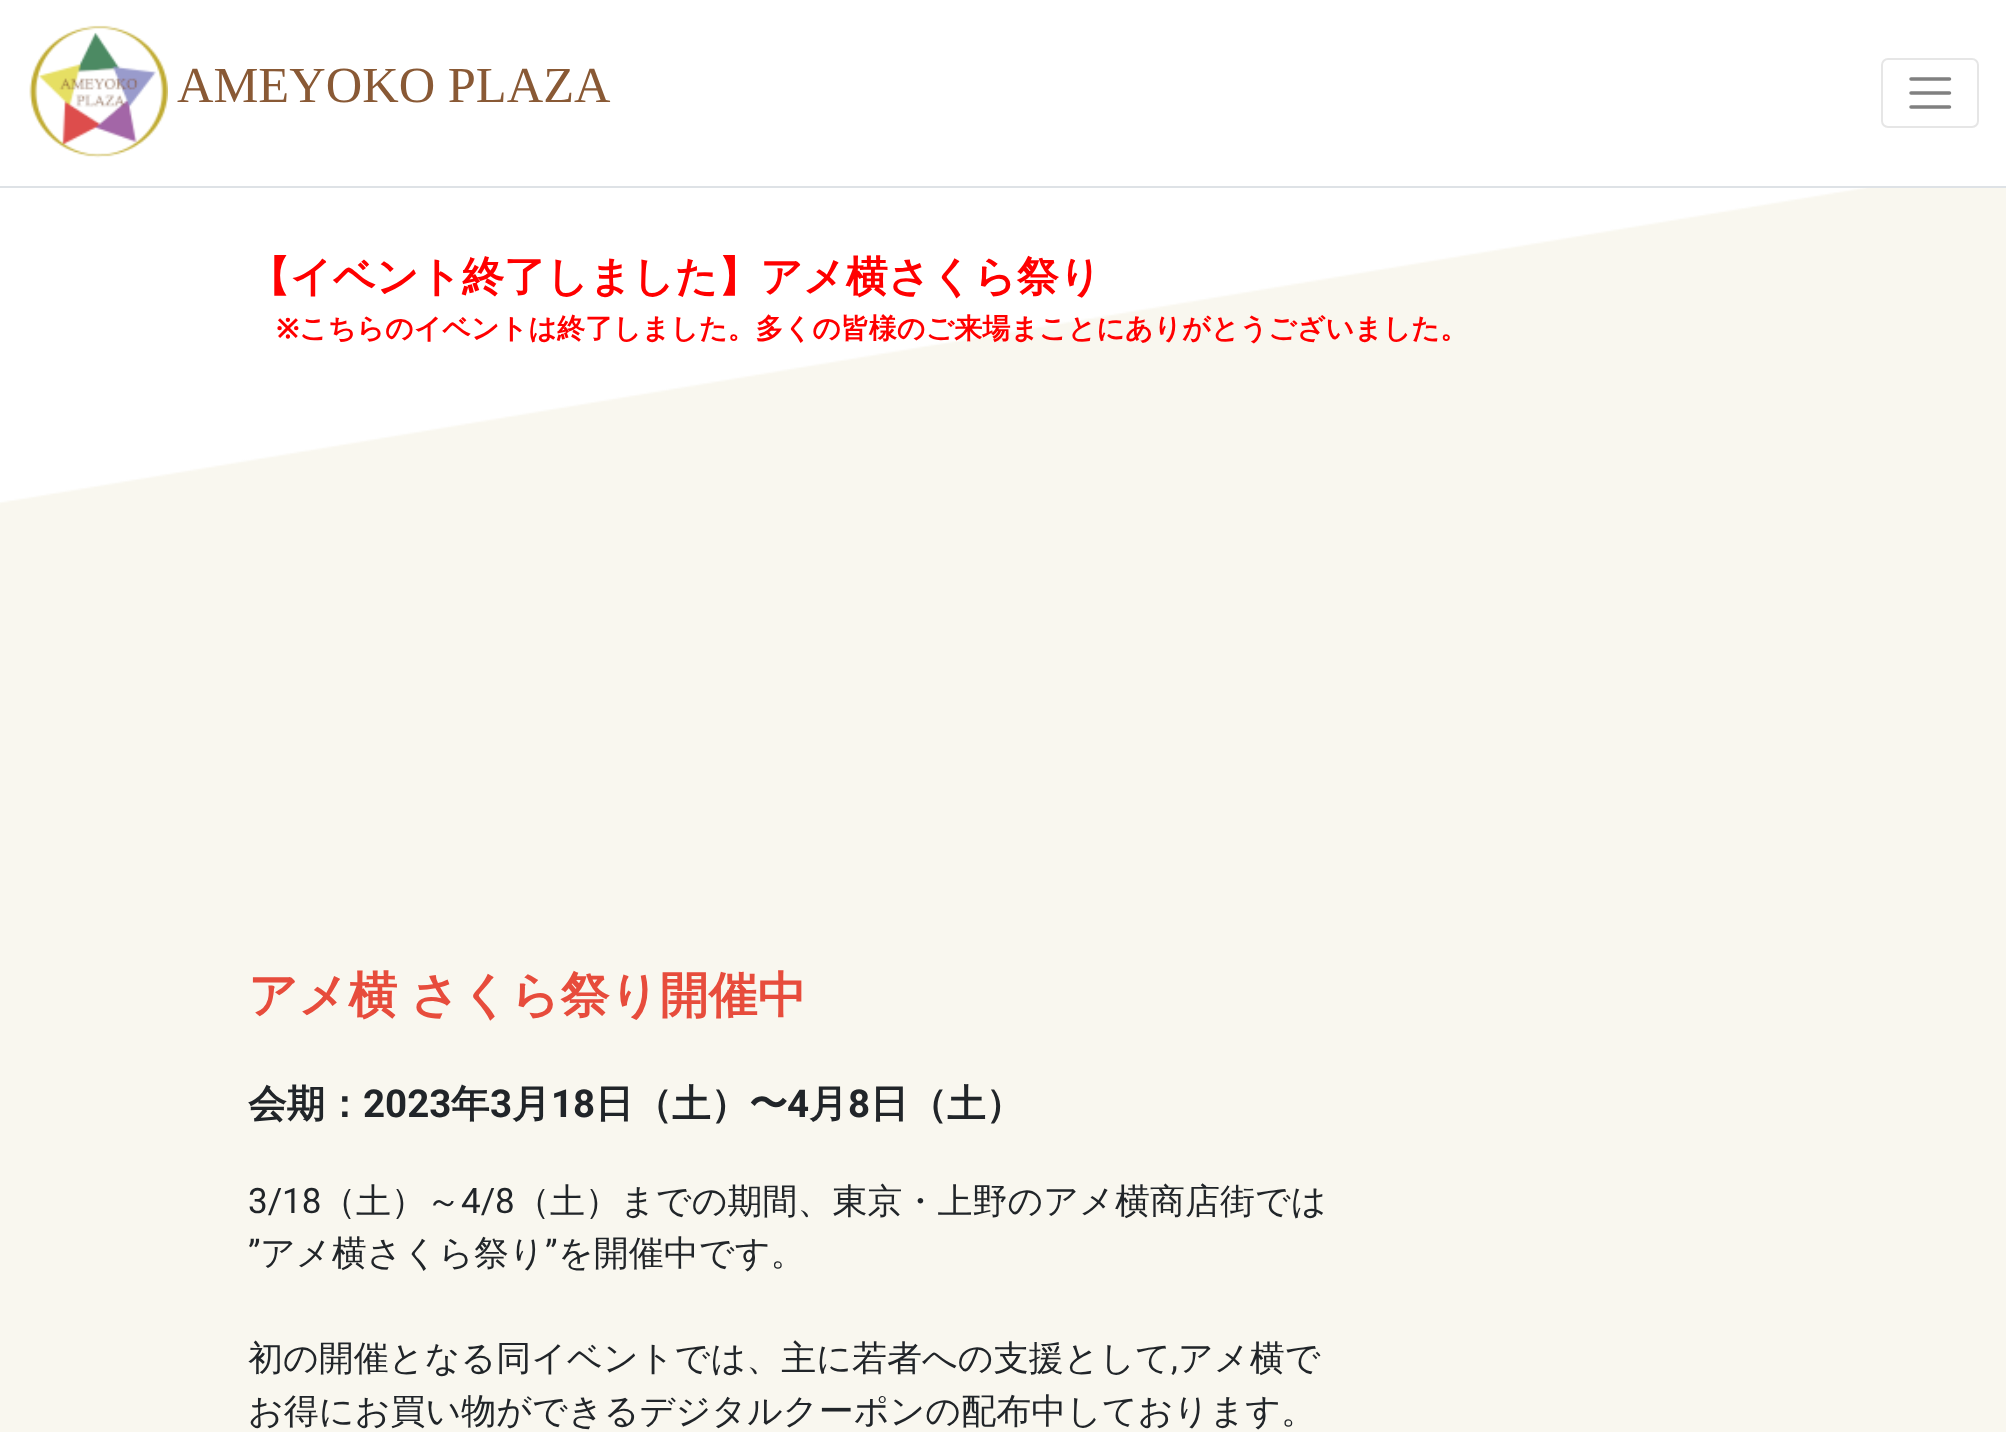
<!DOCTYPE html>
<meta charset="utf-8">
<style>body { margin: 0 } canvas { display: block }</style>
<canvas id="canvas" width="2006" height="1432"></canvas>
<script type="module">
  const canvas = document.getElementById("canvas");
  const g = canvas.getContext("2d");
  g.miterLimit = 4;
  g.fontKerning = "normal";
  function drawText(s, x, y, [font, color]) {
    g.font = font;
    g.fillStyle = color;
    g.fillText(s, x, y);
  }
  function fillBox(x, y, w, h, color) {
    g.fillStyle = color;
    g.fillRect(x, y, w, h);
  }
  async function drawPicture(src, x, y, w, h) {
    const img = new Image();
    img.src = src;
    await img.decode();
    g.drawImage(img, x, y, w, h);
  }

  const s1 = ["50.5px Liberation Serif", "#895935"];
  const s2 = ["bold 42px WenQuanYi Zen Hei", "#FF0000"];
  const s3 = ["bold 28px Noto Sans", "#FF0000"];
  const s4 = ["bold 28px WenQuanYi Zen Hei", "#FF0000"];
  const s5 = ["bold 49px WenQuanYi Zen Hei", "#E74C3C"];
  const s6 = ["bold 38.5px WenQuanYi Zen Hei", "#212529"];
  const s7 = ["bold 38.5px Roboto", "#212529"];
  const s8 = ["35px Roboto", "#212529"];
  const s9 = ["500 35px WenQuanYi Zen Hei", "#212529"];

  fillBox(0, 0, 2006, 1432, "#FFFFFF");
  await drawPicture("pic1.png", 0, 188, 2006, 1244);
  fillBox(0, 186, 2006, 2, "#DEE2E6");
  await drawPicture("pic2.png", 29, 25, 139, 133);
  drawText("AMEYOKO PLAZA", 177, 102, s1);
  g.beginPath();
  g.roundRect(1882, 59, 96, 68, 6);
  g.strokeStyle = "#E6E6E6";
  g.lineWidth = 2;
  g.stroke();
  g.beginPath();
  g.moveTo(1911, 79);
  g.lineTo(1949.5, 79);
  g.moveTo(1911, 93);
  g.lineTo(1949.5, 93);
  g.moveTo(1911, 107);
  g.lineTo(1949.5, 107);
  g.strokeStyle = "#808080";
  g.lineWidth = 3.5;
  g.lineCap = "round";
  g.stroke();
  drawText("【イベント終了しました】アメ横さくら祭り", 248, 291, s2);
  drawText("※", 276, 338, s3);
  drawText("こちらのイベントは終了しました。多くの皆様のご来場まことにありがとうございました。", 299, 338, s4);
  g.wordSpacing = "-2px";
  drawText("アメ横 さくら祭り開催中", 248, 1012, s5);
  g.wordSpacing = "0px";
  drawText("会期：", 248, 1117, s6);
  drawText("2023", 363, 1117, s7);
  drawText("年", 451, 1117, s6);
  drawText("3", 490, 1117, s7);
  drawText("月", 512, 1117, s6);
  drawText("18", 551, 1117, s7);
  drawText("日（土）〜", 595, 1117, s6);
  drawText("4", 787, 1117, s7);
  drawText("月", 809, 1117, s6);
  drawText("8", 848, 1117, s7);
  drawText("日（土）", 870, 1117, s6);
  drawText("3/18", 248, 1213, s8);
  drawText("（土）～", 321, 1213, s9);
  drawText("4/8", 461, 1213, s8);
  drawText("（土）までの期間、東京・上野のアメ横商店街では", 515, 1213, s9);
  drawText("”", 248, 1265, s8);
  drawText("アメ横さくら祭り", 260, 1265, s9);
  drawText("”", 545, 1265, s8);
  drawText("を開催中です。", 558, 1265, s9);
  drawText("初の開催となる同イベントでは、主に若者への支援として", 248, 1370, s9);
  drawText(",", 1171, 1370, s8);
  drawText("アメ横で", 1178, 1370, s9);
  drawText("お得にお買い物ができるデジタルクーポンの配布中しております。", 248, 1423, s9);
</script>
